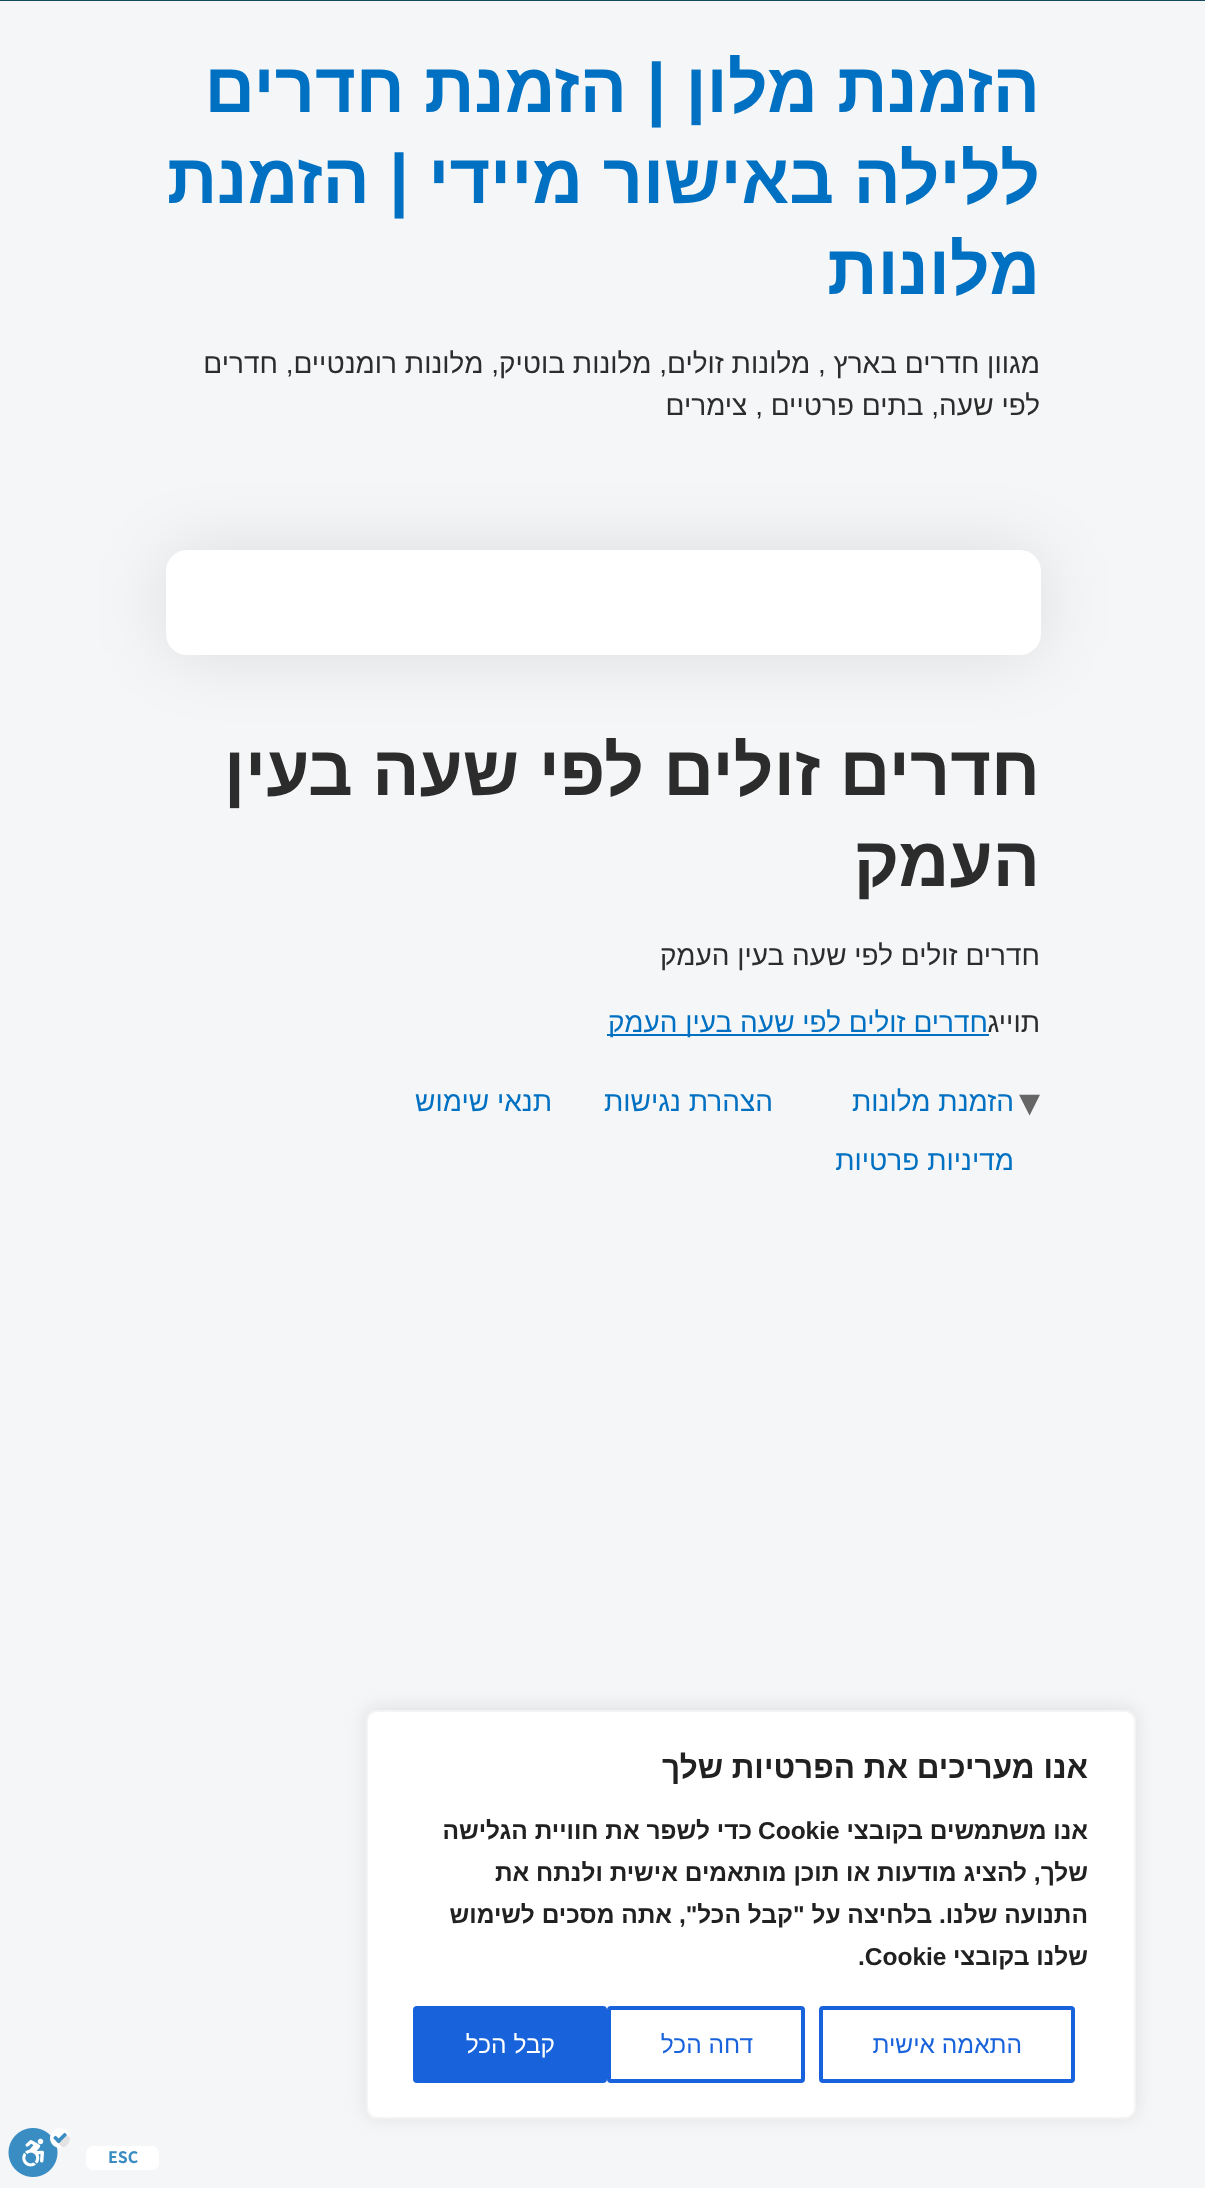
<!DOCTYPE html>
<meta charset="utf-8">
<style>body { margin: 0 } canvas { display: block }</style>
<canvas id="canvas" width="1205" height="2188"></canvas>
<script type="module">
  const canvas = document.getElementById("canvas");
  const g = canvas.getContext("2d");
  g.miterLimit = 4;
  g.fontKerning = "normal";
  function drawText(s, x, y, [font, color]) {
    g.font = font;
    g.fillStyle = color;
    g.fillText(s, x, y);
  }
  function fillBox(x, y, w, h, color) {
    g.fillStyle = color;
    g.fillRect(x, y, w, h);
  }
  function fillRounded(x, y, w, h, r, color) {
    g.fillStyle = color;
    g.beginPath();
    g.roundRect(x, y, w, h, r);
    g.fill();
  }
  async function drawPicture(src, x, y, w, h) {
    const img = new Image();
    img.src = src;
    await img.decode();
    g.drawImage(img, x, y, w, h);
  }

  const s1 = ["bold 70px Liberation Sans", "#0071C2"];
  const s2 = ["28px Liberation Sans", "#2C2C2C"];
  const s3 = ["bold 70px Liberation Sans", "#2C2C2C"];
  const s4 = ["28px Liberation Sans", "#0071C2"];
  const s5 = ["42px DejaVu Sans", "#666666"];
  const s6 = ["bold 31.5px Liberation Sans", "#212121"];
  const s7 = ["bold 24.5px Liberation Sans", "#212121"];
  const s8 = ["24.5px Liberation Sans", "#1863DC"];
  const s9 = ["24.5px Liberation Sans", "#FFFFFF"];
  const s10 = ["bold 18px Assistant", "#3A8DC2"];

  fillBox(0, 0, 1205, 2188, "#F5F6F7");
  g.direction = "rtl";
  drawText("הזמנת מלון | הזמנת חדרים", 1040, 112, s1);
  drawText("ללילה באישור מיידי | הזמנת", 1040, 203, s1);
  drawText("מלונות", 1040, 294, s1);
  drawText("מגוון חדרים בארץ , מלונות זולים, מלונות בוטיק, מלונות רומנטיים, חדרים", 1040, 373, s2);
  drawText("לפי שעה, בתים פרטיים , צימרים", 1040, 415, s2);
  g.fillStyle = "rgba(0, 0, 0, 0.1)";
  g.filter = "blur(35px)";
  g.beginPath();
  g.roundRect(166, 550, 875, 105, 21);
  g.fill();
  g.filter = "none";
  fillRounded(166, 550, 875, 105, 21, "#FFFFFF");
  drawText("חדרים זולים לפי שעה בעין", 1040, 795, s3);
  drawText("העמק", 1040, 886, s3);
  drawText("חדרים זולים לפי שעה בעין העמק", 1040, 965, s2);
  drawText("תוייג", 1040, 1032, s2);
  fillBox(607, 1034, 382, 2, "#0071C2");
  drawText("חדרים זולים לפי שעה בעין העמק", 988, 1032, s4);
  g.direction = "ltr";
  drawText("▾", 1019, 1116, s5);
  g.direction = "rtl";
  drawText("הזמנת מלונות", 1014, 1111, s4);
  drawText("הצהרת נגישות", 773, 1111, s4);
  drawText("תנאי שימוש", 552, 1111, s4);
  drawText("מדיניות פרטיות", 1014, 1170, s4);
  g.fillStyle = "rgba(172, 171, 171, 0.3)";
  g.filter = "blur(9px)";
  g.beginPath();
  g.roundRect(366, 1708, 770, 410, 11);
  g.fill();
  g.filter = "none";
  g.fillStyle = "#FFFFFF";
  g.beginPath();
  g.roundRect(367, 1711, 768, 407, 10);
  g.fill();
  g.strokeStyle = "#F4F4F4";
  g.lineWidth = 2;
  g.stroke();
  drawText("אנו מעריכים את הפרטיות שלך", 1088, 1778, s6);
  drawText("אנו משתמשים בקובצי", 1088, 1839, s7);
  g.direction = "ltr";
  drawText("Cookie", 758, 1839, s7);
  g.direction = "rtl";
  drawText("כדי לשפר את חוויית הגלישה", 752, 1839, s7);
  drawText("שלך, להציג מודעות או תוכן מותאמים אישית ולנתח את", 1088, 1881, s7);
  drawText("התנועה שלנו. בלחיצה על \"קבל הכל\", אתה מסכים לשימוש", 1088, 1923, s7);
  drawText("שלנו בקובצי", 1088, 1965, s7);
  g.direction = "ltr";
  drawText(".Cookie", 858, 1965, s7);
  g.beginPath();
  g.roundRect(821, 2008, 252, 73, 2);
  g.strokeStyle = "#1863DC";
  g.lineWidth = 4;
  g.stroke();
  g.direction = "rtl";
  drawText("התאמה אישית", 1022, 2053, s8);
  g.beginPath();
  g.roundRect(609, 2008, 194, 73, 2);
  g.stroke();
  drawText("דחה הכל", 753, 2053, s8);
  g.beginPath();
  g.roundRect(415, 2008, 190, 73, 2);
  g.fill();
  g.stroke();
  drawText("קבל הכל", 555, 2053, s9);
  fillBox(0, 0, 1205, 1, "#15495F");
  fillRounded(86, 2146, 73, 24, 7, "#FFFFFF");
  g.direction = "ltr";
  drawText("ESC", 108, 2163, s10);
  await drawPicture("pic1.png", 8, 2128, 62, 49);
</script>
